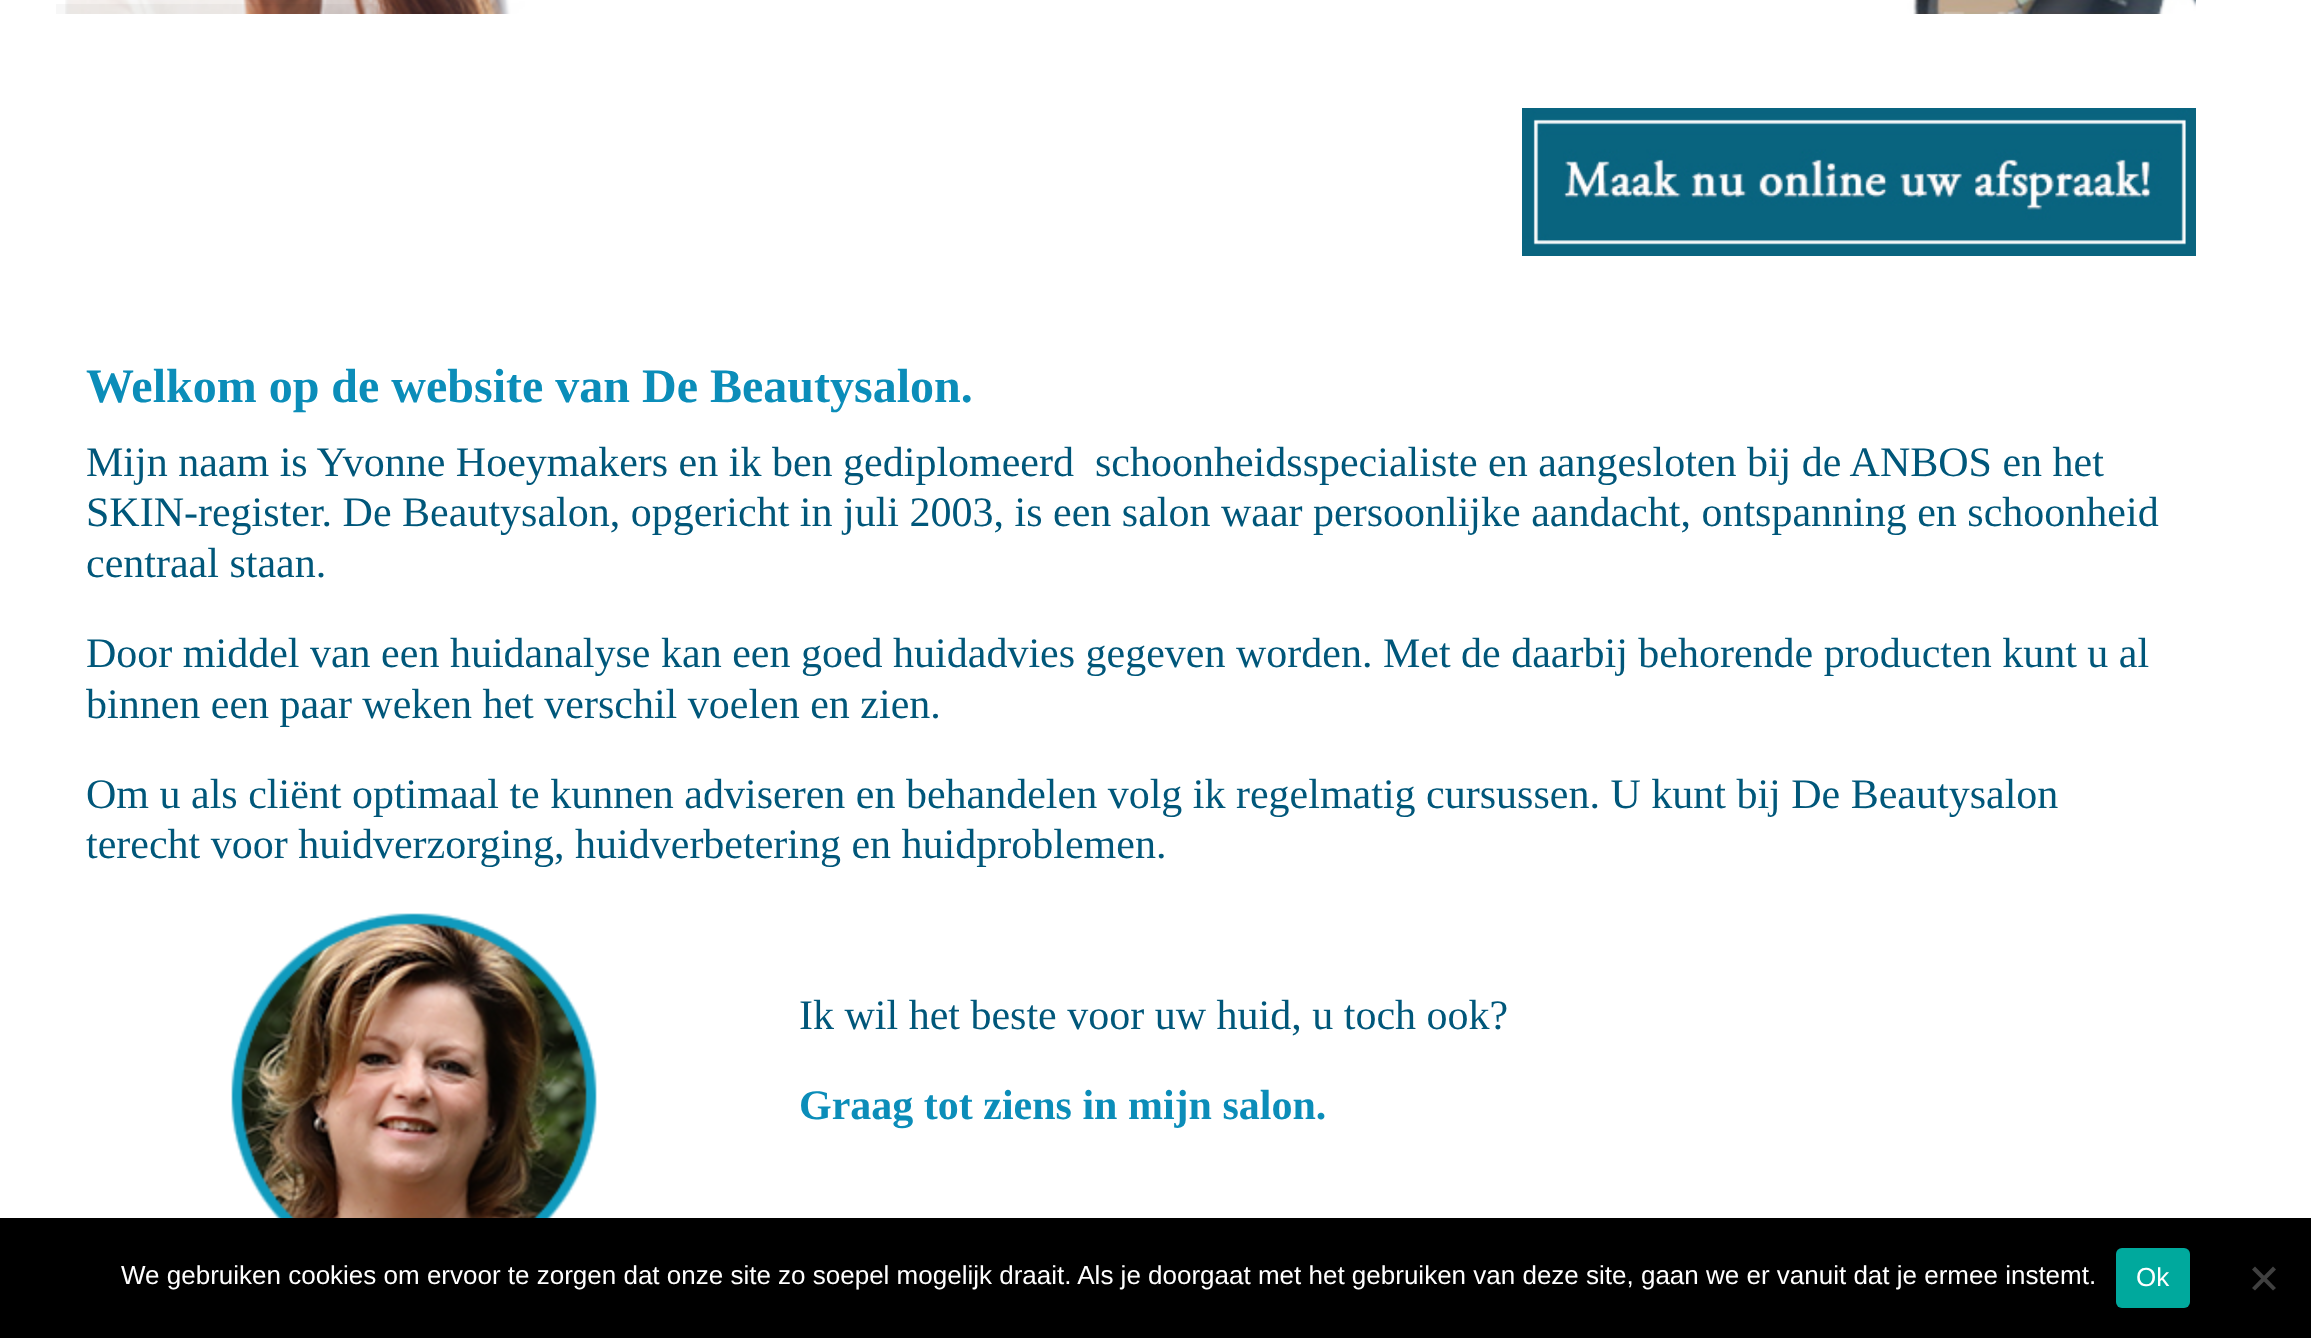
<!DOCTYPE html>
<meta charset="utf-8">
<style>body { margin: 0 } canvas { display: block }</style>
<canvas id="canvas" width="2311" height="1338"></canvas>
<script type="module">
  const canvas = document.getElementById("canvas");
  const g = canvas.getContext("2d");
  g.miterLimit = 4;
  g.fontKerning = "normal";
  function drawText(s, x, y, [font, color]) {
    g.font = font;
    g.fillStyle = color;
    g.fillText(s, x, y);
  }
  function fillBox(x, y, w, h, color) {
    g.fillStyle = color;
    g.fillRect(x, y, w, h);
  }
  function fillRounded(x, y, w, h, r, color) {
    g.fillStyle = color;
    g.beginPath();
    g.roundRect(x, y, w, h, r);
    g.fill();
  }
  async function drawPicture(src, x, y, w, h) {
    const img = new Image();
    img.src = src;
    await img.decode();
    g.drawImage(img, x, y, w, h);
  }

  const s1 = ["bold 48px Liberation Serif", "#0B8DB9"];
  const s2 = ["42px Liberation Serif", "#00577A"];
  const s3 = ["bold 42px Liberation Serif", "#0B8DB9"];
  const s4 = ["26px Liberation Sans", "#FFFFFF"];

  fillBox(0, 0, 2311, 1338, "#FFFFFF");
  await drawPicture("pic1.png", 65, 0, 2131, 14);
  fillBox(56, 4, 322, 10, "rgba(0, 0, 0, 0.03)");
  await drawPicture("pic2.png", 1522, 108, 674, 148);
  drawText("Welkom op de website van De Beautysalon.", 86, 402, s1);
  drawText("Mijn naam is Yvonne Hoeymakers en ik ben gediplomeerd  schoonheidsspecialiste en aangesloten bij de ANBOS en het", 86, 476, s2);
  drawText("SKIN-register. De Beautysalon, opgericht in juli 2003, is een salon waar persoonlijke aandacht, ontspanning en schoonheid", 86, 526, s2);
  drawText("centraal staan.", 86, 577, s2);
  drawText("Door middel van een huidanalyse kan een goed huidadvies gegeven worden. Met de daarbij behorende producten kunt u al", 86, 667, s2);
  drawText("binnen een paar weken het verschil voelen en zien.", 86, 718, s2);
  drawText("Om u als cliënt optimaal te kunnen adviseren en behandelen volg ik regelmatig cursussen. U kunt bij De Beautysalon", 86, 808, s2);
  drawText("terecht voor huidverzorging, huidverbetering en huidproblemen.", 86, 858, s2);
  await drawPicture("pic3.png", 231, 913, 366, 305);
  drawText("Ik wil het beste voor uw huid, u toch ook?", 799, 1029, s2);
  drawText("Graag tot ziens in mijn salon.", 799, 1119, s3);
  fillBox(0, 1218, 2311, 120, "#000000");
  drawText("We gebruiken cookies om ervoor te zorgen dat onze site zo soepel mogelijk draait. Als je doorgaat met het gebruiken van deze site, gaan we er vanuit dat je ermee instemt.", 121, 1284, s4);
  fillRounded(2116, 1248, 74, 60, 6, "#00A99D");
  drawText("Ok", 2136, 1286, s4);
  g.fillStyle = "#404040";
  g.beginPath();
  g.moveTo(2273, 1266.5);
  g.lineTo(2276, 1269.5);
  g.lineTo(2255, 1290.5);
  g.lineTo(2252, 1288);
  g.closePath();
  g.fill();
  g.beginPath();
  g.moveTo(2252, 1269.5);
  g.lineTo(2255, 1266.5);
  g.lineTo(2276, 1288);
  g.lineTo(2273, 1290.5);
  g.closePath();
  g.fill();
</script>
